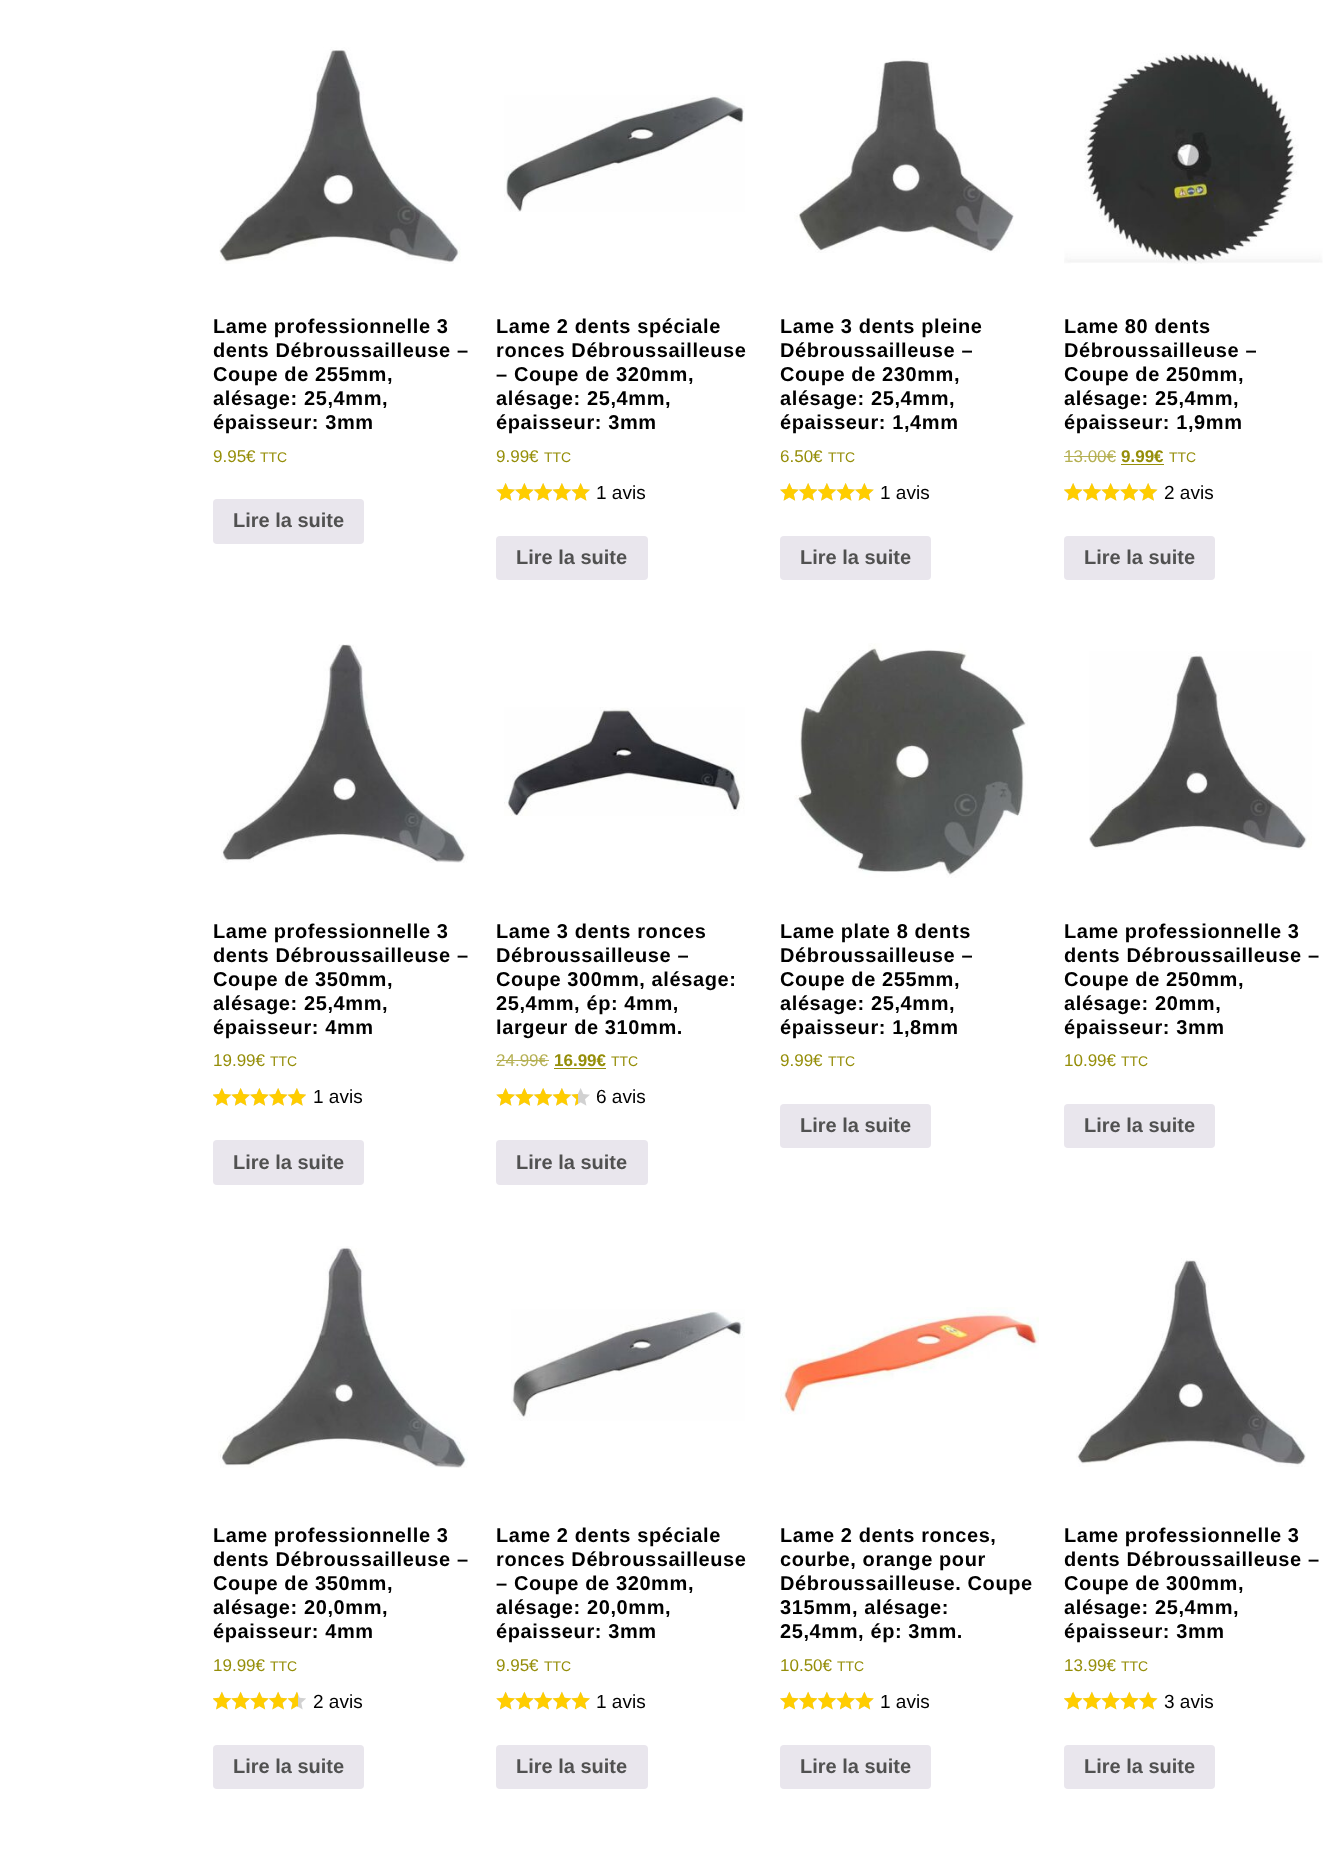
<!DOCTYPE html>
<meta charset="utf-8">
<style>body { margin: 0 } canvas { display: block }</style>
<canvas id="canvas" width="1335" height="1858"></canvas>
<script type="module">
  const canvas = document.getElementById("canvas");
  const g = canvas.getContext("2d");
  g.miterLimit = 4;
  g.fontKerning = "normal";
  function drawText(s, x, y, [font, color]) {
    g.font = font;
    g.fillStyle = color;
    g.fillText(s, x, y);
  }
  function fillBox(x, y, w, h, color) {
    g.fillStyle = color;
    g.fillRect(x, y, w, h);
  }
  function fillRounded(x, y, w, h, r, color) {
    g.fillStyle = color;
    g.beginPath();
    g.roundRect(x, y, w, h, r);
    g.fill();
  }
  async function drawPicture(src, x, y, w, h) {
    const img = new Image();
    img.src = src;
    await img.decode();
    g.drawImage(img, x, y, w, h);
  }

  const s1 = ["bold 20px Liberation Sans", "#000000"];
  const s2 = ["17px Liberation Sans", "#958E09"];
  const s3 = ["14px Liberation Sans", "#958E09"];
  const s4 = ["bold 20px Liberation Sans", "#515151"];
  const s5 = ["19px Liberation Sans", "#000000"];
  const s6 = ["17px Liberation Sans", "#B5B053"];
  const s7 = ["bold 17px Liberation Sans", "#958E09"];

  fillBox(0, 0, 1335, 1858, "#FFFFFF");
  await drawPicture("pic1.png", 219, 47, 242, 217);
  g.letterSpacing = "0.6px";
  drawText("Lame professionnelle 3", 213, 333, s1);
  drawText("dents Débroussailleuse –", 213, 357, s1);
  drawText("Coupe de 255mm,", 213, 381, s1);
  drawText("alésage: 25,4mm,", 213, 405, s1);
  drawText("épaisseur: 3mm", 213, 429, s1);
  g.letterSpacing = "0px";
  drawText("9.95€", 213, 462, s2);
  drawText("TTC", 260, 462, s3);
  fillRounded(213, 499, 151, 45, 4, "#E9E6ED");
  drawText("Lire la suite", 233, 527, s4);
  await drawPicture("pic2.png", 504, 95, 241, 117);
  g.letterSpacing = "0.6px";
  drawText("Lame 2 dents spéciale", 496, 333, s1);
  drawText("ronces Débroussailleuse", 496, 357, s1);
  drawText("– Coupe de 320mm,", 496, 381, s1);
  drawText("alésage: 25,4mm,", 496, 405, s1);
  drawText("épaisseur: 3mm", 496, 429, s1);
  g.letterSpacing = "0px";
  drawText("9.99€", 496, 462, s2);
  drawText("TTC", 544, 462, s3);
  await drawPicture("pic3.png", 496, 483, 19, 18);
  await drawPicture("pic4.png", 515, 483, 19, 18);
  await drawPicture("pic5.png", 534, 483, 19, 18);
  await drawPicture("pic6.png", 553, 483, 18, 18);
  await drawPicture("pic3.png", 571, 483, 19, 18);
  await drawPicture("pic7.png", 496, 483, 19, 18);
  await drawPicture("pic8.png", 515, 483, 19, 18);
  await drawPicture("pic9.png", 534, 483, 19, 18);
  await drawPicture("pic10.png", 553, 483, 18, 18);
  await drawPicture("pic7.png", 571, 483, 19, 18);
  drawText("1 avis", 596, 499, s5);
  fillRounded(496, 536, 152, 44, 4, "#E9E6ED");
  drawText("Lire la suite", 516, 564, s4);
  await drawPicture("pic11.png", 794, 58, 220, 195);
  g.letterSpacing = "0.6px";
  drawText("Lame 3 dents pleine", 780, 333, s1);
  drawText("Débroussailleuse –", 780, 357, s1);
  drawText("Coupe de 230mm,", 780, 381, s1);
  drawText("alésage: 25,4mm,", 780, 405, s1);
  drawText("épaisseur: 1,4mm", 780, 429, s1);
  g.letterSpacing = "0px";
  drawText("6.50€", 780, 462, s2);
  drawText("TTC", 828, 462, s3);
  await drawPicture("pic4.png", 780, 483, 19, 18);
  await drawPicture("pic5.png", 799, 483, 19, 18);
  await drawPicture("pic6.png", 818, 483, 18, 18);
  await drawPicture("pic3.png", 836, 483, 19, 18);
  await drawPicture("pic4.png", 855, 483, 19, 18);
  await drawPicture("pic8.png", 780, 483, 19, 18);
  await drawPicture("pic9.png", 799, 483, 19, 18);
  await drawPicture("pic10.png", 818, 483, 18, 18);
  await drawPicture("pic7.png", 836, 483, 19, 18);
  await drawPicture("pic8.png", 855, 483, 19, 18);
  drawText("1 avis", 880, 499, s5);
  fillRounded(780, 536, 151, 44, 4, "#E9E6ED");
  drawText("Lire la suite", 800, 564, s4);
  await drawPicture("pic12.png", 1064, 53, 259, 211);
  g.letterSpacing = "0.6px";
  drawText("Lame 80 dents", 1064, 333, s1);
  drawText("Débroussailleuse –", 1064, 357, s1);
  drawText("Coupe de 250mm,", 1064, 381, s1);
  drawText("alésage: 25,4mm,", 1064, 405, s1);
  drawText("épaisseur: 1,9mm", 1064, 429, s1);
  g.letterSpacing = "0px";
  drawText("13.00€", 1064, 462, s6);
  fillBox(1064, 456, 52, 1, "#B5B053");
  drawText("9.99€", 1121, 462, s7);
  fillBox(1121, 464, 43, 1, "#958E09");
  drawText("TTC", 1169, 462, s3);
  await drawPicture("pic5.png", 1064, 483, 19, 18);
  await drawPicture("pic6.png", 1083, 483, 18, 18);
  await drawPicture("pic3.png", 1101, 483, 19, 18);
  await drawPicture("pic4.png", 1120, 483, 19, 18);
  await drawPicture("pic5.png", 1139, 483, 19, 18);
  await drawPicture("pic9.png", 1064, 483, 19, 18);
  await drawPicture("pic10.png", 1083, 483, 18, 18);
  await drawPicture("pic7.png", 1101, 483, 19, 18);
  await drawPicture("pic8.png", 1120, 483, 19, 18);
  await drawPicture("pic9.png", 1139, 483, 19, 18);
  drawText("2 avis", 1164, 499, s5);
  fillRounded(1064, 536, 151, 44, 4, "#E9E6ED");
  drawText("Lire la suite", 1084, 564, s4);
  await drawPicture("pic13.png", 221, 644, 247, 219);
  g.letterSpacing = "0.6px";
  drawText("Lame professionnelle 3", 213, 938, s1);
  drawText("dents Débroussailleuse –", 213, 962, s1);
  drawText("Coupe de 350mm,", 213, 986, s1);
  drawText("alésage: 25,4mm,", 213, 1010, s1);
  drawText("épaisseur: 4mm", 213, 1034, s1);
  g.letterSpacing = "0px";
  drawText("19.99€", 213, 1066, s2);
  drawText("TTC", 270, 1066, s3);
  await drawPicture("pic6.png", 213, 1088, 18, 18);
  await drawPicture("pic3.png", 231, 1088, 19, 18);
  await drawPicture("pic4.png", 250, 1088, 19, 18);
  await drawPicture("pic5.png", 269, 1088, 19, 18);
  await drawPicture("pic6.png", 288, 1088, 18, 18);
  await drawPicture("pic10.png", 213, 1088, 18, 18);
  await drawPicture("pic7.png", 231, 1088, 19, 18);
  await drawPicture("pic8.png", 250, 1088, 19, 18);
  await drawPicture("pic9.png", 269, 1088, 19, 18);
  await drawPicture("pic10.png", 288, 1088, 18, 18);
  drawText("1 avis", 313, 1103, s5);
  fillRounded(213, 1140, 151, 45, 4, "#E9E6ED");
  drawText("Lire la suite", 233, 1169, s4);
  await drawPicture("pic14.png", 504, 707, 241, 109);
  g.letterSpacing = "0.6px";
  drawText("Lame 3 dents ronces", 496, 938, s1);
  drawText("Débroussailleuse –", 496, 962, s1);
  drawText("Coupe 300mm, alésage:", 496, 986, s1);
  drawText("25,4mm, ép: 4mm,", 496, 1010, s1);
  drawText("largeur de 310mm.", 496, 1034, s1);
  g.letterSpacing = "0px";
  drawText("24.99€", 496, 1066, s6);
  fillBox(496, 1060, 53, 1, "#B5B053");
  drawText("16.99€", 554, 1066, s7);
  fillBox(554, 1068, 52, 1, "#958E09");
  drawText("TTC", 611, 1066, s3);
  await drawPicture("pic3.png", 496, 1088, 19, 18);
  await drawPicture("pic4.png", 515, 1088, 19, 18);
  await drawPicture("pic5.png", 534, 1088, 19, 18);
  await drawPicture("pic6.png", 553, 1088, 18, 18);
  await drawPicture("pic3.png", 571, 1088, 19, 18);
  await drawPicture("pic7.png", 496, 1088, 19, 18);
  await drawPicture("pic8.png", 515, 1088, 19, 18);
  await drawPicture("pic9.png", 534, 1088, 19, 18);
  await drawPicture("pic10.png", 553, 1088, 18, 18);
  await drawPicture("pic15.png", 571, 1094, 7, 12);
  drawText("6 avis", 596, 1103, s5);
  fillRounded(496, 1140, 152, 45, 4, "#E9E6ED");
  drawText("Lire la suite", 516, 1169, s4);
  await drawPicture("pic16.png", 794, 643, 234, 235);
  g.letterSpacing = "0.6px";
  drawText("Lame plate 8 dents", 780, 938, s1);
  drawText("Débroussailleuse –", 780, 962, s1);
  drawText("Coupe de 255mm,", 780, 986, s1);
  drawText("alésage: 25,4mm,", 780, 1010, s1);
  drawText("épaisseur: 1,8mm", 780, 1034, s1);
  g.letterSpacing = "0px";
  drawText("9.99€", 780, 1066, s2);
  drawText("TTC", 828, 1066, s3);
  fillRounded(780, 1104, 151, 44, 4, "#E9E6ED");
  drawText("Lire la suite", 800, 1132, s4);
  await drawPicture("pic17.png", 1089, 651, 223, 199);
  g.letterSpacing = "0.6px";
  drawText("Lame professionnelle 3", 1064, 938, s1);
  drawText("dents Débroussailleuse –", 1064, 962, s1);
  drawText("Coupe de 250mm,", 1064, 986, s1);
  drawText("alésage: 20mm,", 1064, 1010, s1);
  drawText("épaisseur: 3mm", 1064, 1034, s1);
  g.letterSpacing = "0px";
  drawText("10.99€", 1064, 1066, s2);
  drawText("TTC", 1121, 1066, s3);
  fillRounded(1064, 1104, 151, 44, 4, "#E9E6ED");
  drawText("Lire la suite", 1084, 1132, s4);
  await drawPicture("pic18.png", 218, 1246, 250, 222);
  g.letterSpacing = "0.6px";
  drawText("Lame professionnelle 3", 213, 1542, s1);
  drawText("dents Débroussailleuse –", 213, 1566, s1);
  drawText("Coupe de 350mm,", 213, 1590, s1);
  drawText("alésage: 20,0mm,", 213, 1614, s1);
  drawText("épaisseur: 4mm", 213, 1638, s1);
  g.letterSpacing = "0px";
  drawText("19.99€", 213, 1671, s2);
  drawText("TTC", 270, 1671, s3);
  await drawPicture("pic24.png", 213, 1692, 18, 18);
  await drawPicture("pic19.png", 213, 1691, 18, 19);
  await drawPicture("pic25.png", 231, 1692, 19, 18);
  await drawPicture("pic20.png", 231, 1691, 19, 19);
  await drawPicture("pic26.png", 250, 1692, 19, 18);
  await drawPicture("pic21.png", 250, 1691, 19, 19);
  await drawPicture("pic27.png", 269, 1692, 19, 18);
  await drawPicture("pic22.png", 269, 1691, 19, 19);
  await drawPicture("pic24.png", 288, 1692, 18, 18);
  await drawPicture("pic23.png", 288, 1691, 10, 19);
  drawText("2 avis", 313, 1708, s5);
  fillRounded(213, 1745, 151, 44, 4, "#E9E6ED");
  drawText("Lire la suite", 233, 1773, s4);
  await drawPicture("pic28.png", 511, 1309, 234, 112);
  g.letterSpacing = "0.6px";
  drawText("Lame 2 dents spéciale", 496, 1542, s1);
  drawText("ronces Débroussailleuse", 496, 1566, s1);
  drawText("– Coupe de 320mm,", 496, 1590, s1);
  drawText("alésage: 20,0mm,", 496, 1614, s1);
  drawText("épaisseur: 3mm", 496, 1638, s1);
  g.letterSpacing = "0px";
  drawText("9.95€", 496, 1671, s2);
  drawText("TTC", 544, 1671, s3);
  await drawPicture("pic25.png", 496, 1692, 19, 18);
  await drawPicture("pic20.png", 496, 1691, 19, 19);
  await drawPicture("pic26.png", 515, 1692, 19, 18);
  await drawPicture("pic21.png", 515, 1691, 19, 19);
  await drawPicture("pic27.png", 534, 1692, 19, 18);
  await drawPicture("pic22.png", 534, 1691, 19, 19);
  await drawPicture("pic24.png", 553, 1692, 18, 18);
  await drawPicture("pic19.png", 553, 1691, 18, 19);
  await drawPicture("pic25.png", 571, 1692, 19, 18);
  await drawPicture("pic20.png", 571, 1691, 19, 19);
  drawText("1 avis", 596, 1708, s5);
  fillRounded(496, 1745, 152, 44, 4, "#E9E6ED");
  drawText("Lire la suite", 516, 1773, s4);
  await drawPicture("pic29.png", 780, 1307, 259, 108);
  g.letterSpacing = "0.6px";
  drawText("Lame 2 dents ronces,", 780, 1542, s1);
  drawText("courbe, orange pour", 780, 1566, s1);
  drawText("Débroussailleuse. Coupe", 780, 1590, s1);
  drawText("315mm, alésage:", 780, 1614, s1);
  drawText("25,4mm, ép: 3mm.", 780, 1638, s1);
  g.letterSpacing = "0px";
  drawText("10.50€", 780, 1671, s2);
  drawText("TTC", 837, 1671, s3);
  await drawPicture("pic26.png", 780, 1692, 19, 18);
  await drawPicture("pic21.png", 780, 1691, 19, 19);
  await drawPicture("pic27.png", 799, 1692, 19, 18);
  await drawPicture("pic22.png", 799, 1691, 19, 19);
  await drawPicture("pic24.png", 818, 1692, 18, 18);
  await drawPicture("pic19.png", 818, 1691, 18, 19);
  await drawPicture("pic25.png", 836, 1692, 19, 18);
  await drawPicture("pic20.png", 836, 1691, 19, 19);
  await drawPicture("pic26.png", 855, 1692, 19, 18);
  await drawPicture("pic21.png", 855, 1691, 19, 19);
  drawText("1 avis", 880, 1708, s5);
  fillRounded(780, 1745, 151, 44, 4, "#E9E6ED");
  drawText("Lire la suite", 800, 1773, s4);
  await drawPicture("pic30.png", 1076, 1258, 230, 209);
  g.letterSpacing = "0.6px";
  drawText("Lame professionnelle 3", 1064, 1542, s1);
  drawText("dents Débroussailleuse –", 1064, 1566, s1);
  drawText("Coupe de 300mm,", 1064, 1590, s1);
  drawText("alésage: 25,4mm,", 1064, 1614, s1);
  drawText("épaisseur: 3mm", 1064, 1638, s1);
  g.letterSpacing = "0px";
  drawText("13.99€", 1064, 1671, s2);
  drawText("TTC", 1121, 1671, s3);
  await drawPicture("pic27.png", 1064, 1692, 19, 18);
  await drawPicture("pic22.png", 1064, 1691, 19, 19);
  await drawPicture("pic24.png", 1083, 1692, 18, 18);
  await drawPicture("pic19.png", 1083, 1691, 18, 19);
  await drawPicture("pic25.png", 1101, 1692, 19, 18);
  await drawPicture("pic20.png", 1101, 1691, 19, 19);
  await drawPicture("pic26.png", 1120, 1692, 19, 18);
  await drawPicture("pic21.png", 1120, 1691, 19, 19);
  await drawPicture("pic27.png", 1139, 1692, 19, 18);
  await drawPicture("pic22.png", 1139, 1691, 19, 19);
  drawText("3 avis", 1164, 1708, s5);
  fillRounded(1064, 1745, 151, 44, 4, "#E9E6ED");
  drawText("Lire la suite", 1084, 1773, s4);
</script>
